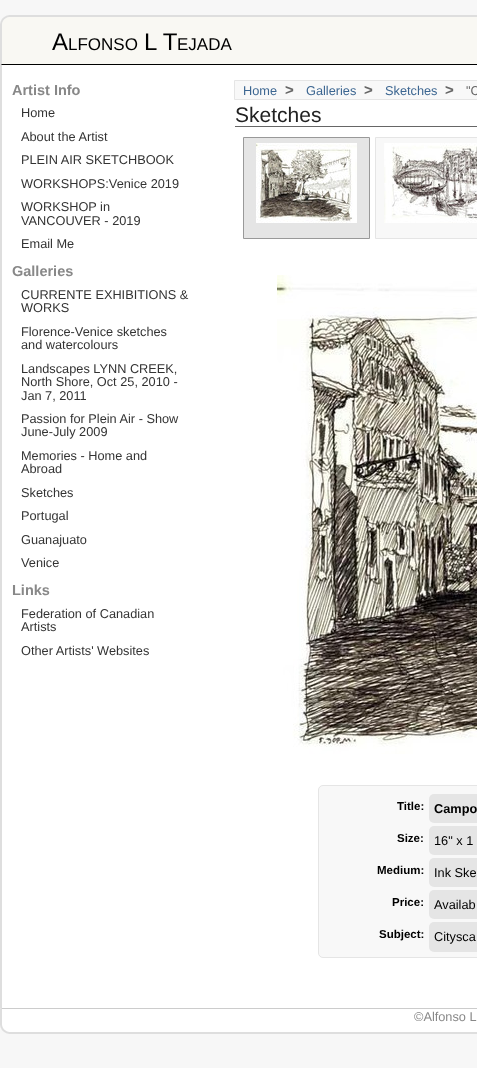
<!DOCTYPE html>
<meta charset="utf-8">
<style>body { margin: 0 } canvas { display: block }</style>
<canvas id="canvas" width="477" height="1068"></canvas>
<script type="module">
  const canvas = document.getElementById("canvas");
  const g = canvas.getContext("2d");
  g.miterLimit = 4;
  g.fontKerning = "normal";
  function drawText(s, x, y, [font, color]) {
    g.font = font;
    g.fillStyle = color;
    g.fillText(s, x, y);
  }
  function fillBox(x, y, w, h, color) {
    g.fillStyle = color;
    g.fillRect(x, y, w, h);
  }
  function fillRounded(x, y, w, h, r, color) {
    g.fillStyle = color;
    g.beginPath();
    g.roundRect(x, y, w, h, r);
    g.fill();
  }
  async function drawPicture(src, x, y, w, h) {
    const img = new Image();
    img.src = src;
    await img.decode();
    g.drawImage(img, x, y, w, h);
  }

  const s1 = ["24px Liberation Sans", "#000000"];
  const s2 = ["17px Liberation Sans", "#000000"];
  const s3 = ["bold 14.5px Liberation Sans", "#888888"];
  const s4 = ["12.75px Liberation Sans", "#333333"];
  const s5 = ["12.75px Liberation Sans", "#3C6691"];
  const s6 = ["bold 15px Liberation Sans", "#666666"];
  const s7 = ["12.75px Liberation Sans", "#666666"];
  const s8 = ["21px Liberation Sans", "#222222"];
  const s9 = ["bold 11.5px Liberation Sans", "#000000"];
  const s10 = ["bold 12.75px Liberation Sans", "#000000"];
  const s11 = ["12.75px Liberation Sans", "#000000"];
  const s12 = ["12.75px Liberation Sans", "#888888"];

  fillBox(0, 0, 477, 1068, "#F7F7F7");
  await drawPicture("pic1.png", 0, 15, 477, 10);
  fillBox(0, 25, 477, 40, "#F9F8F3");
  g.fillStyle = "#000000";
  g.beginPath();
  g.moveTo(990, 65);
  g.lineTo(0, 65);
  g.lineTo(2, 64);
  g.lineTo(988, 64);
  g.closePath();
  g.fill();
  g.fillStyle = "#DEDEDE";
  g.beginPath();
  g.moveTo(0, 65);
  g.lineTo(0, 25);
  g.lineTo(2, 25);
  g.lineTo(2, 64);
  g.closePath();
  g.fill();
  drawText("A", 52, 50, s1);
  drawText("LFONSO", 68, 50, s2);
  drawText("L T", 144, 50, s1);
  drawText("EJADA", 177, 50, s2);
  fillBox(2, 65, 475, 943, "#FFFFFF");
  fillBox(0, 65, 2, 943, "#DEDEDE");
  drawText("Artist Info", 12, 95, s3);
  drawText("Home", 21, 117, s4);
  drawText("About the Artist", 21, 141, s4);
  drawText("PLEIN AIR SKETCHBOOK", 21, 164, s4);
  drawText("WORKSHOPS:Venice 2019", 21, 188, s4);
  drawText("WORKSHOP in", 21, 211, s4);
  drawText("VANCOUVER - 2019", 21, 225, s4);
  drawText("Email Me", 21, 248, s4);
  drawText("Galleries", 12, 276, s3);
  drawText("CURRENTE EXHIBITIONS &", 21, 299, s4);
  drawText("WORKS", 21, 312, s4);
  drawText("Florence-Venice sketches", 21, 336, s4);
  drawText("and watercolours", 21, 349, s4);
  drawText("Landscapes LYNN CREEK,", 21, 373, s4);
  drawText("North Shore, Oct 25, 2010 -", 21, 386, s4);
  drawText("Jan 7, 2011", 21, 400, s4);
  drawText("Passion for Plein Air - Show", 21, 423, s4);
  drawText("June-July 2009", 21, 436, s4);
  drawText("Memories - Home and", 21, 460, s4);
  drawText("Abroad", 21, 473, s4);
  drawText("Sketches", 21, 497, s4);
  drawText("Portugal", 21, 520, s4);
  drawText("Guanajuato", 21, 544, s4);
  drawText("Venice", 21, 567, s4);
  drawText("Links", 12, 595, s3);
  drawText("Federation of Canadian", 21, 618, s4);
  drawText("Artists", 21, 631, s4);
  drawText("Other Artists' Websites", 21, 655, s4);
  g.fillStyle = "#F8F8F8";
  g.beginPath();
  g.rect(234.5, 80.5, 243, 19);
  g.fill();
  g.strokeStyle = "#E5E5E5";
  g.stroke();
  drawText("Home", 243, 95, s5);
  drawText(">", 285, 95, s6);
  drawText("Galleries", 306, 95, s5);
  drawText(">", 364, 95, s6);
  drawText("Sketches", 385, 95, s5);
  drawText(">", 445, 95, s6);
  drawText("\"C", 466, 95, s7);
  fillBox(235, 126, 242, 1, "#666666");
  drawText("Sketches", 235, 122, s8);
  g.fillStyle = "#E5E5E5";
  g.beginPath();
  g.rect(243.5, 137.5, 126, 101);
  g.fill();
  g.strokeStyle = "#999999";
  g.stroke();
  await drawPicture("pic2.png", 256, 143, 101, 80);
  g.fillStyle = "#F8F8F8";
  g.beginPath();
  g.rect(375.5, 137.5, 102, 101);
  g.fill();
  g.strokeStyle = "#E5E5E5";
  g.stroke();
  await drawPicture("pic3.png", 384, 143, 93, 80);
  await drawPicture("pic4.png", 277, 275, 200, 479);
  g.beginPath();
  g.roundRect(318.5, 785.5, 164, 172, 4.5);
  g.fill();
  g.stroke();
  drawText("Title:", 397, 810, s9);
  fillRounded(429, 794, 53, 29, 5, "#E5E5E5");
  drawText("Campo", 434, 813, s10);
  drawText("Size:", 397, 842, s9);
  fillRounded(429, 826, 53, 29, 5, "#E5E5E5");
  drawText("16\" x 1", 434, 845, s11);
  drawText("Medium:", 377, 874, s9);
  fillRounded(429, 858, 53, 29, 5, "#E5E5E5");
  drawText("Ink Ske", 434, 877, s11);
  drawText("Price:", 392, 906, s9);
  fillRounded(429, 890, 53, 29, 5, "#E5E5E5");
  drawText("Availab", 434, 909, s11);
  drawText("Subject:", 379, 938, s9);
  fillRounded(429, 922, 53, 30, 5, "#E5E5E5");
  drawText("Citysca", 434, 941, s11);
  fillBox(0, 1008, 477, 17, "#FFFFFF");
  g.fillStyle = "#CCCCCC";
  g.beginPath();
  g.moveTo(0, 1008);
  g.lineTo(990, 1008);
  g.lineTo(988, 1009);
  g.lineTo(2, 1009);
  g.closePath();
  g.fill();
  g.fillStyle = "#DEDEDE";
  g.beginPath();
  g.moveTo(0, 1025);
  g.lineTo(0, 1008);
  g.lineTo(2, 1009);
  g.lineTo(2, 1025);
  g.closePath();
  g.fill();
  drawText("©Alfonso L", 414, 1021, s12);
  await drawPicture("pic5.png", 0, 1025, 477, 9);
</script>
